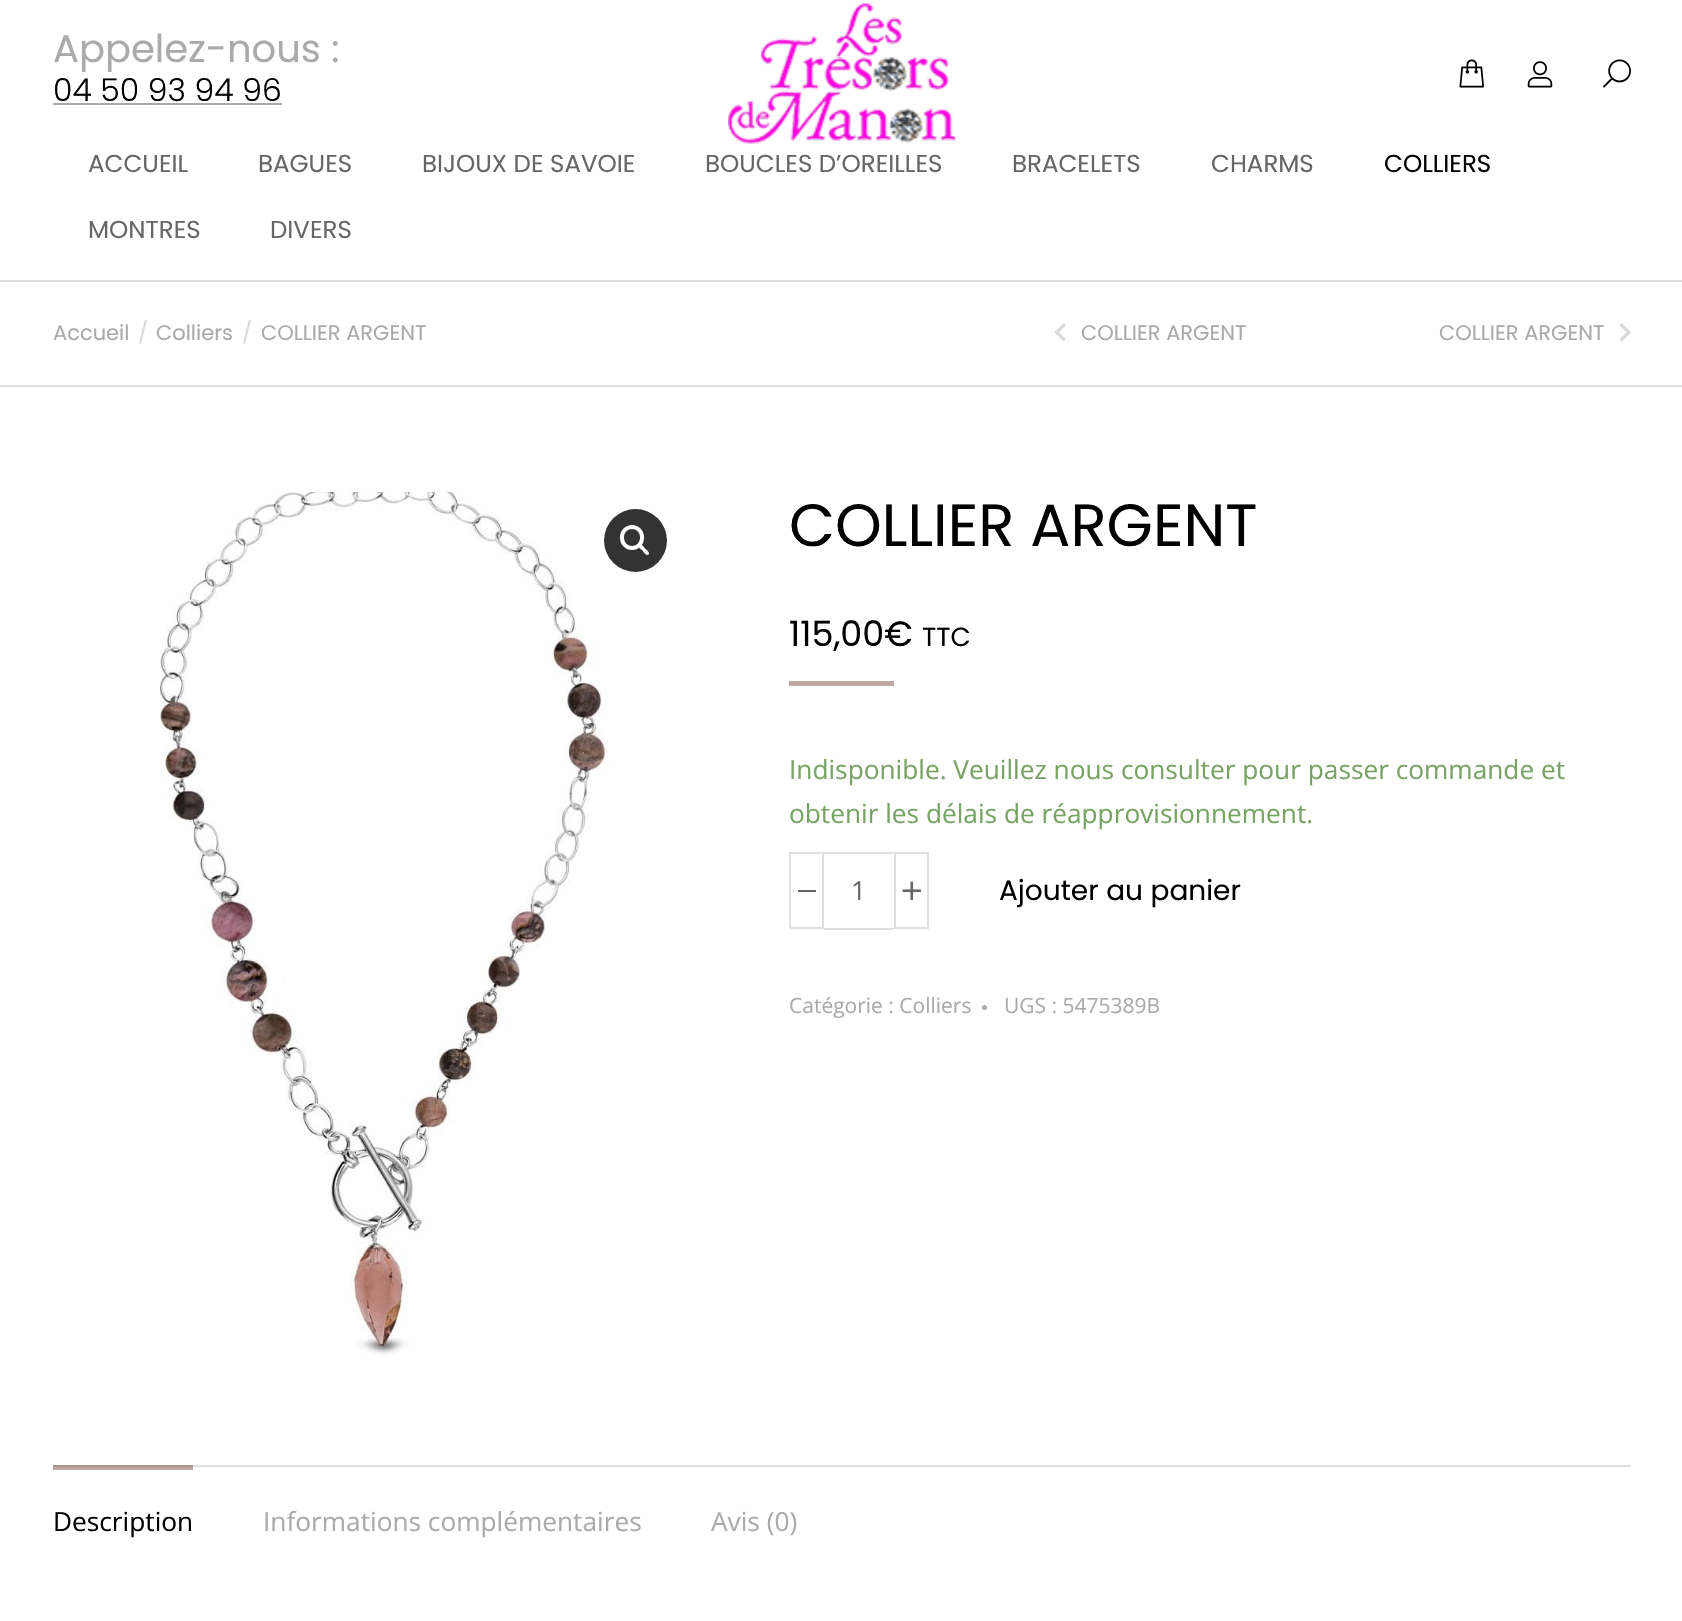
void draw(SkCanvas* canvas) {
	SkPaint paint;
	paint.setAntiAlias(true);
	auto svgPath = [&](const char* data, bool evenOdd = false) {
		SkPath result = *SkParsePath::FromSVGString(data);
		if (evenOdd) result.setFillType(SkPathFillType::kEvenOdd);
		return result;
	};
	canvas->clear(0xffffffff);
	paint.setColor(0xffe0e0e0);
	canvas->drawRect(SkRect::MakeXYWH(193, 1465, 1438, 2), paint);
	canvas->drawRect(SkRect::MakeXYWH(0, 280, 1682, 2), paint);
	SkFont f1(fontMgr->matchFamilyStyle("Poppins", SkFontStyle::Normal()), 38.5);
	f1.setSubpixel(true);
	paint.setColor(0xffaaaaaa);
	canvas->drawString("Appelez-nous :", 53, 62, f1, paint);
	SkFont f2(fontMgr->matchFamilyStyle("Poppins", SkFontStyle(300, SkFontStyle::kNormal_Width, SkFontStyle::kUpright_Slant)), 31.5);
	f2.setSubpixel(true);
	paint.setColor(0xff000000);
	canvas->drawString("04 50 93 94 96", 53, 101, f2, paint);
	paint.setColor(0xffaaaaaa);
	canvas->drawRect(SkRect::MakeXYWH(53, 103, 229, 2), paint);
	canvas->drawImageRect(SkImages::DeferredFromEncodedData(SkData::MakeFromFileName("img1.png")), SkRect::MakeXYWH(728, 3, 228, 141), SkSamplingOptions());
	canvas->drawImageRect(SkImages::DeferredFromEncodedData(SkData::MakeFromFileName("img2.png")), SkRect::MakeXYWH(1459, 59, 25, 29), SkSamplingOptions());
	canvas->drawImageRect(SkImages::DeferredFromEncodedData(SkData::MakeFromFileName("img3.png")), SkRect::MakeXYWH(1527, 61, 26, 27), SkSamplingOptions());
	canvas->drawImageRect(SkImages::DeferredFromEncodedData(SkData::MakeFromFileName("img4.png")), SkRect::MakeXYWH(1603, 59, 28, 29), SkSamplingOptions());
	SkFont f3(fontMgr->matchFamilyStyle("Poppins", SkFontStyle::Normal()), 24.5);
	f3.setSubpixel(true);
	paint.setColor(0xff666666);
	canvas->drawString("ACCUEIL", 88, 172, f3, paint);
	canvas->drawString("BAGUES", 258, 172, f3, paint);
	canvas->drawString("BIJOUX DE SAVOIE", 422, 172, f3, paint);
	canvas->drawString("BOUCLES D’OREILLES", 705, 172, f3, paint);
	canvas->drawString("BRACELETS", 1012, 172, f3, paint);
	canvas->drawString("CHARMS", 1211, 172, f3, paint);
	paint.setColor(0xff000000);
	canvas->drawString("COLLIERS", 1384, 172, f3, paint);
	paint.setColor(0xff666666);
	canvas->drawString("MONTRES", 88, 238, f3, paint);
	canvas->drawString("DIVERS", 270, 238, f3, paint);
	paint.setColor(0xffe0e0e0);
	canvas->drawRect(SkRect::MakeXYWH(0, 385, 1682, 2), paint);
	SkFont f4(fontMgr->matchFamilyStyle("Poppins", SkFontStyle::Normal()), 21);
	f4.setSubpixel(true);
	paint.setColor(0xffaaaaaa);
	canvas->drawString("Accueil", 53, 340, f4, paint);
	paint.setColor(0xffd9d9d9);
	canvas->drawString("/", 138, 340, f4, paint);
	paint.setColor(0xffaaaaaa);
	canvas->drawString("Colliers", 156, 340, f4, paint);
	paint.setColor(0xffd9d9d9);
	canvas->drawString("/", 242, 340, f4, paint);
	paint.setColor(0xffaaaaaa);
	canvas->drawString("COLLIER ARGENT", 261, 340, f4, paint);
	canvas->drawImageRect(SkImages::DeferredFromEncodedData(SkData::MakeFromFileName("img5.png")), SkRect::MakeXYWH(1054, 323, 12, 19), SkSamplingOptions());
	canvas->save();
	canvas->clipRect(SkRect::MakeXYWH(1082, 312, 164, 43));
	canvas->drawString("COLLIER ARGENT", 1081, 340, f4, paint);
	canvas->restore();
	canvas->drawString("COLLIER ARGENT", 1439, 340, f4, paint);
	canvas->drawImageRect(SkImages::DeferredFromEncodedData(SkData::MakeFromFileName("img6.png")), SkRect::MakeXYWH(1620, 323, 11, 19), SkSamplingOptions());
	canvas->drawImageRect(SkImages::DeferredFromEncodedData(SkData::MakeFromFileName("img7.png")), SkRect::MakeXYWH(160, 491, 449, 864), SkSamplingOptions());
	paint.setColor(0xff333333);
	canvas->drawCircle(635.5, 540.5, 31.5, paint);
	paint.setStroke(true);
	paint.setStrokeWidth(4);
	paint.setColor(0xffffffff);
	canvas->drawRoundRect(SkRect::MakeXYWH(622, 527, 20, 21), 10, 10, paint);
	paint.setStroke(false);
	canvas->drawPath(svgPath("M638.5 544.5C640.5 542.5 644 547 645 548.5C646 549.5 650.5 552.5 648.5 554.5C646.5 556.5 643.5 552 642.5 550.5C641.5 549.5 636.5 546.5 638.5 544.5Z"), paint);
	SkFont f5(fontMgr->matchFamilyStyle("Poppins", SkFontStyle::Normal()), 59.5);
	f5.setSubpixel(true);
	paint.setColor(0xff000000);
	canvas->drawString("COLLIER ARGENT", 789, 546, f5, paint);
	SkFont f6(fontMgr->matchFamilyStyle("Poppins", SkFontStyle::Normal()), 35);
	f6.setSubpixel(true);
	canvas->drawString("115,00€", 789, 646, f6, paint);
	SkFont f7(fontMgr->matchFamilyStyle("Poppins", SkFontStyle::Normal()), 26.25);
	f7.setSubpixel(true);
	canvas->drawString("TTC", 922, 646, f7, paint);
	paint.setColor(0xffbca9a3);
	canvas->drawRect(SkRect::MakeXYWH(789, 681, 105, 5), paint);
	SkFont f8(fontMgr->matchFamilyStyle("Open Sans", SkFontStyle::Normal()), 26.25);
	f8.setSubpixel(true);
	paint.setColor(0xff77a464);
	canvas->drawString("Indisponible. Veuillez nous consulter pour passer commande et", 789, 779, f8, paint);
	canvas->drawString("obtenir les délais de réapprovisionnement.", 789, 823, f8, paint);
	paint.setStroke(true);
	paint.setStrokeWidth(2);
	paint.setColor(0xffe0e0e0);
	canvas->drawRect(SkRect::MakeXYWH(790, 853, 33, 75), paint);
	paint.setStroke(false);
	paint.setColor(0xff666666);
	canvas->drawRect(SkRect::MakeXYWH(798, 890, 18, 2), paint);
	paint.setColor(0xffe0e0e0);
	canvas->drawRect(SkRect::MakeXYWH(824, 852, 70, 2), paint);
	canvas->drawRect(SkRect::MakeXYWH(824, 928, 70, 2), paint);
	paint.setColor(0xff666666);
	canvas->drawString("1", 851, 900, f8, paint);
	paint.setStroke(true);
	paint.setColor(0xffe0e0e0);
	canvas->drawRect(SkRect::MakeXYWH(895, 853, 33, 75), paint);
	canvas->drawImageRect(SkImages::DeferredFromEncodedData(SkData::MakeFromFileName("img8.png")), SkRect::MakeXYWH(902, 881, 19, 19), SkSamplingOptions());
	SkFont f9(fontMgr->matchFamilyStyle("Poppins", SkFontStyle::Normal()), 28);
	f9.setSubpixel(true);
	paint.setStroke(false);
	paint.setColor(0xff000000);
	canvas->drawString("Ajouter au panier", 999, 900, f9, paint);
	SkFont f10(fontMgr->matchFamilyStyle("Open Sans", SkFontStyle::Normal()), 21);
	f10.setSubpixel(true);
	paint.setColor(0xffaaaaaa);
	canvas->drawString("Catégorie : Colliers", 789, 1013, f10, paint);
	canvas->drawCircle(984.5, 1007.5, 2.5, paint);
	canvas->drawString("UGS : 5475389B", 1004, 1013, f10, paint);
	paint.setColor(0xffbca9a3);
	canvas->drawRect(SkRect::MakeXYWH(53, 1467, 140, 3), paint);
	paint.setColor(0xffa5958f);
	canvas->drawRect(SkRect::MakeXYWH(53, 1465, 140, 2), paint);
	paint.setColor(0xff000000);
	canvas->drawString("Description", 53, 1531, f8, paint);
	paint.setColor(0xffaaaaaa);
	canvas->drawString("Informations complémentaires", 263, 1531, f8, paint);
	canvas->drawString("Avis (0)", 711, 1531, f8, paint);
}
